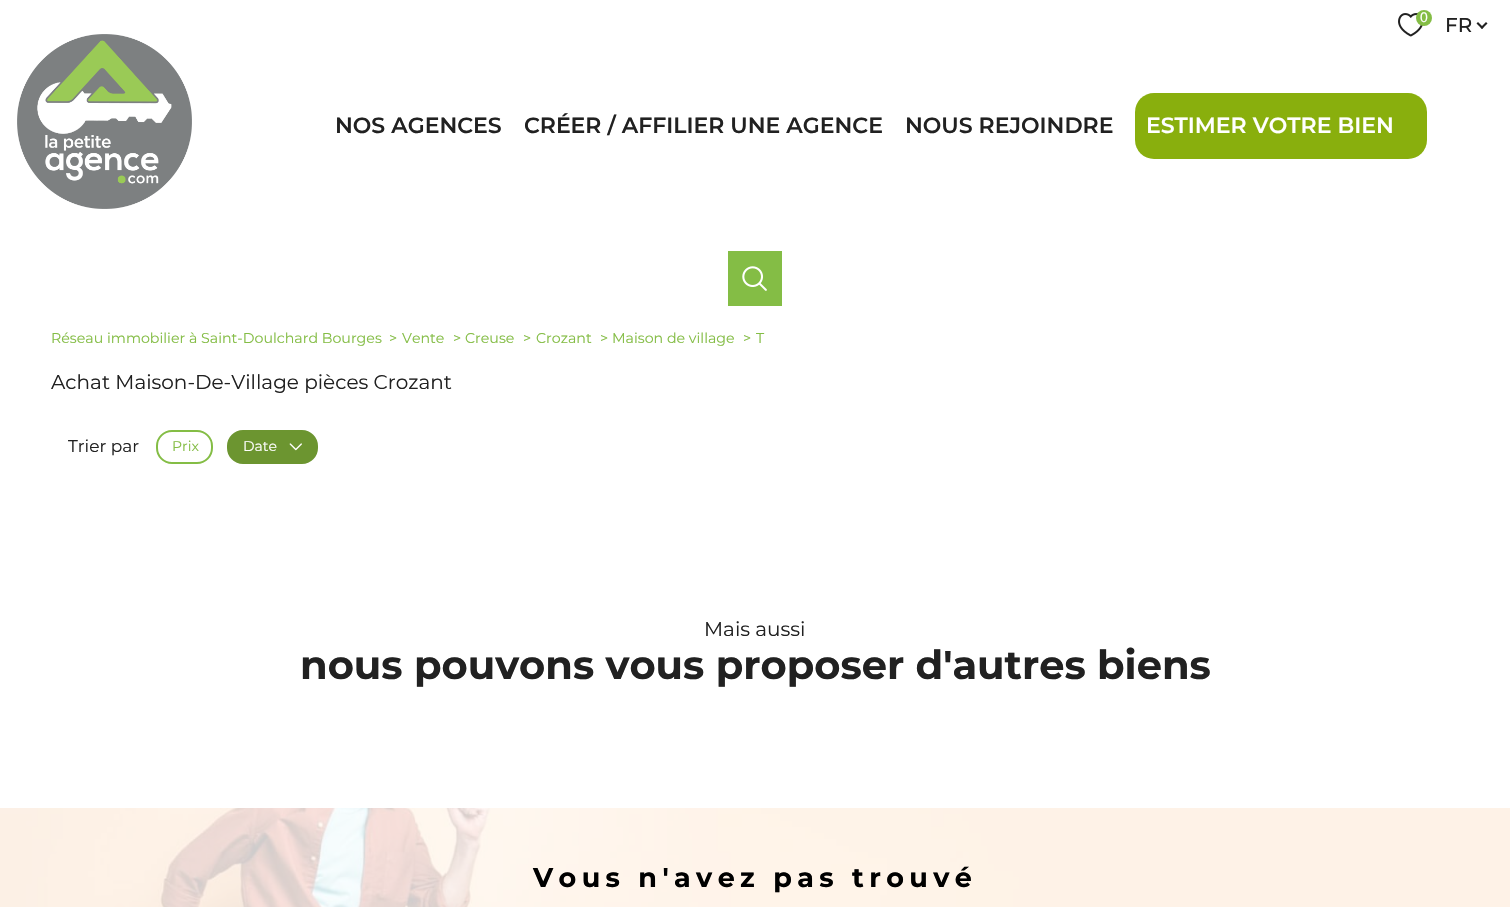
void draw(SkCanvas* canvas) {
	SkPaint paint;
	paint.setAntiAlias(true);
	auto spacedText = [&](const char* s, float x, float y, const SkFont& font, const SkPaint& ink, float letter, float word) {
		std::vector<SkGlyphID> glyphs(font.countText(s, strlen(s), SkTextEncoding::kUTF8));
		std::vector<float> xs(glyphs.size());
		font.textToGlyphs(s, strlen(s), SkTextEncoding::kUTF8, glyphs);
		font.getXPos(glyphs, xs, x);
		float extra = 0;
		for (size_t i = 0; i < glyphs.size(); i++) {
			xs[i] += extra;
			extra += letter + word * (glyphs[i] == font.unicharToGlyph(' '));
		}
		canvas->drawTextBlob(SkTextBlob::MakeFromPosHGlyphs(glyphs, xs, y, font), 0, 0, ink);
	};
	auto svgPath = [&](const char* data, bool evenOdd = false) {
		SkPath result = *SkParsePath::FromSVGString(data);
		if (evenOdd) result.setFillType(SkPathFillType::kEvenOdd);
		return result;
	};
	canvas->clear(0xffffffff);
	canvas->drawImageRect(SkImages::DeferredFromEncodedData(SkData::MakeFromFileName("img1.png")), SkRect::MakeXYWH(1398, 13, 25, 24), SkSamplingOptions());
	paint.setColor(0xff84bd45);
	canvas->drawCircle(1424, 18, 8, paint);
	SkFont f1(fontMgr->matchFamilyStyle("Liberation Sans", SkFontStyle::Normal()), 14);
	f1.setSubpixel(true);
	paint.setColor(0xffffffff);
	canvas->drawString("0", 1420, 22, f1, paint);
	SkFont f2(fontMgr->matchFamilyStyle("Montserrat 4", SkFontStyle(100, SkFontStyle::kNormal_Width, SkFontStyle::kUpright_Slant)), 20);
	f2.setSubpixel(true);
	paint.setColor(0xff212121);
	canvas->drawString("FR", 1445, 32, f2, paint);
	canvas->drawPath(svgPath("M1486 22L1487.5 23.5L1482 29L1480.5 27.5Z"), paint);
	canvas->drawPath(svgPath("M1478 22L1483.5 27.5L1482 29L1476.5 23.5Z"), paint);
	canvas->drawImageRect(SkImages::DeferredFromEncodedData(SkData::MakeFromFileName("img2.png")), SkRect::MakeXYWH(17, 34, 175, 175), SkSamplingOptions());
	SkFont f3(fontMgr->matchFamilyStyle("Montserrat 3", SkFontStyle(100, SkFontStyle::kNormal_Width, SkFontStyle::kUpright_Slant)), 22);
	f3.setSubpixel(true);
	canvas->drawString("NOS AGENCES", 335, 133, f3, paint);
	canvas->drawString("CRÉER / AFFILIER UNE AGENCE", 524, 133, f3, paint);
	canvas->drawString("NOUS REJOINDRE", 905, 133, f3, paint);
	paint.setColor(0xff89af0d);
	canvas->drawRoundRect(SkRect::MakeXYWH(1135, 93, 292, 66), 19, 19, paint);
	paint.setColor(0xffffffff);
	canvas->drawString("ESTIMER VOTRE BIEN", 1146, 133, f3, paint);
	paint.setColor(0xff84bd45);
	canvas->drawRect(SkRect::MakeXYWH(728, 251, 54, 55), paint);
	canvas->drawImageRect(SkImages::DeferredFromEncodedData(SkData::MakeFromFileName("img3.png")), SkRect::MakeXYWH(742, 266, 25, 25), SkSamplingOptions());
	SkFont f4(fontMgr->matchFamilyStyle("Montserrat", SkFontStyle(100, SkFontStyle::kNormal_Width, SkFontStyle::kUpright_Slant)), 14.2);
	f4.setSubpixel(true);
	canvas->drawString("Réseau immobilier à Saint-Doulchard Bourges", 51, 343, f4, paint);
	canvas->drawString(">", 389, 343, f4, paint);
	canvas->drawString("Vente", 402, 343, f4, paint);
	canvas->drawString(">", 453, 343, f4, paint);
	canvas->drawString("Creuse", 465, 343, f4, paint);
	canvas->drawString(">", 523, 343, f4, paint);
	canvas->drawString("Crozant", 536, 343, f4, paint);
	canvas->drawString(">", 600, 343, f4, paint);
	canvas->drawString("Maison de village", 612, 343, f4, paint);
	canvas->drawString(">", 743, 343, f4, paint);
	canvas->drawString("T", 756, 343, f4, paint);
	SkFont f5(fontMgr->matchFamilyStyle("Montserrat", SkFontStyle(100, SkFontStyle::kNormal_Width, SkFontStyle::kUpright_Slant)), 20);
	f5.setSubpixel(true);
	paint.setColor(0xff212121);
	canvas->drawString("Achat Maison-De-Village pièces Crozant", 51, 389, f5, paint);
	SkFont f6(fontMgr->matchFamilyStyle("Montserrat", SkFontStyle(100, SkFontStyle::kNormal_Width, SkFontStyle::kUpright_Slant)), 17);
	f6.setSubpixel(true);
	canvas->drawString("Trier par", 68, 452, f6, paint);
	paint.setStroke(true);
	paint.setStrokeWidth(2);
	paint.setColor(0xff84bd45);
	canvas->drawRoundRect(SkRect::MakeXYWH(157, 431, 55, 32), 15, 15, paint);
	SkFont f7(fontMgr->matchFamilyStyle("Montserrat", SkFontStyle(100, SkFontStyle::kNormal_Width, SkFontStyle::kUpright_Slant)), 14);
	f7.setSubpixel(true);
	paint.setStroke(false);
	canvas->drawString("Prix", 172, 451, f7, paint);
	paint.setColor(0xff6c9530);
	canvas->drawRoundRect(SkRect::MakeXYWH(228, 431, 89, 32), 15, 15, paint);
	paint.setStroke(true);
	canvas->drawRoundRect(SkRect::MakeXYWH(228, 431, 89, 32), 15, 15, paint);
	paint.setStroke(false);
	paint.setColor(0xffffffff);
	canvas->drawString("Date", 243, 451, f7, paint);
	canvas->drawImageRect(SkImages::DeferredFromEncodedData(SkData::MakeFromFileName("img4.png")), SkRect::MakeXYWH(289, 443, 13, 8), SkSamplingOptions());
	paint.setColor(0xff212121);
	canvas->drawString("Mais aussi", 704, 636, f5, paint);
	SkFont f8(fontMgr->matchFamilyStyle("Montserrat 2", SkFontStyle(100, SkFontStyle::kNormal_Width, SkFontStyle::kUpright_Slant)), 40);
	f8.setSubpixel(true);
	canvas->drawString("nous pouvons vous proposer d'autres biens", 300, 679, f8, paint);
	canvas->drawImageRect(SkImages::DeferredFromEncodedData(SkData::MakeFromFileName("img5.png")), SkRect::MakeXYWH(0, 808, 1510, 99), SkSamplingOptions());
	SkFont f9(fontMgr->matchFamilyStyle("Montserrat 2", SkFontStyle(100, SkFontStyle::kNormal_Width, SkFontStyle::kUpright_Slant)), 27);
	f9.setSubpixel(true);
	paint.setColor(0xff000000);
	spacedText("Vous n'avez pas trouvé", 533, 887, f9, paint, 5.4, 0);
}
